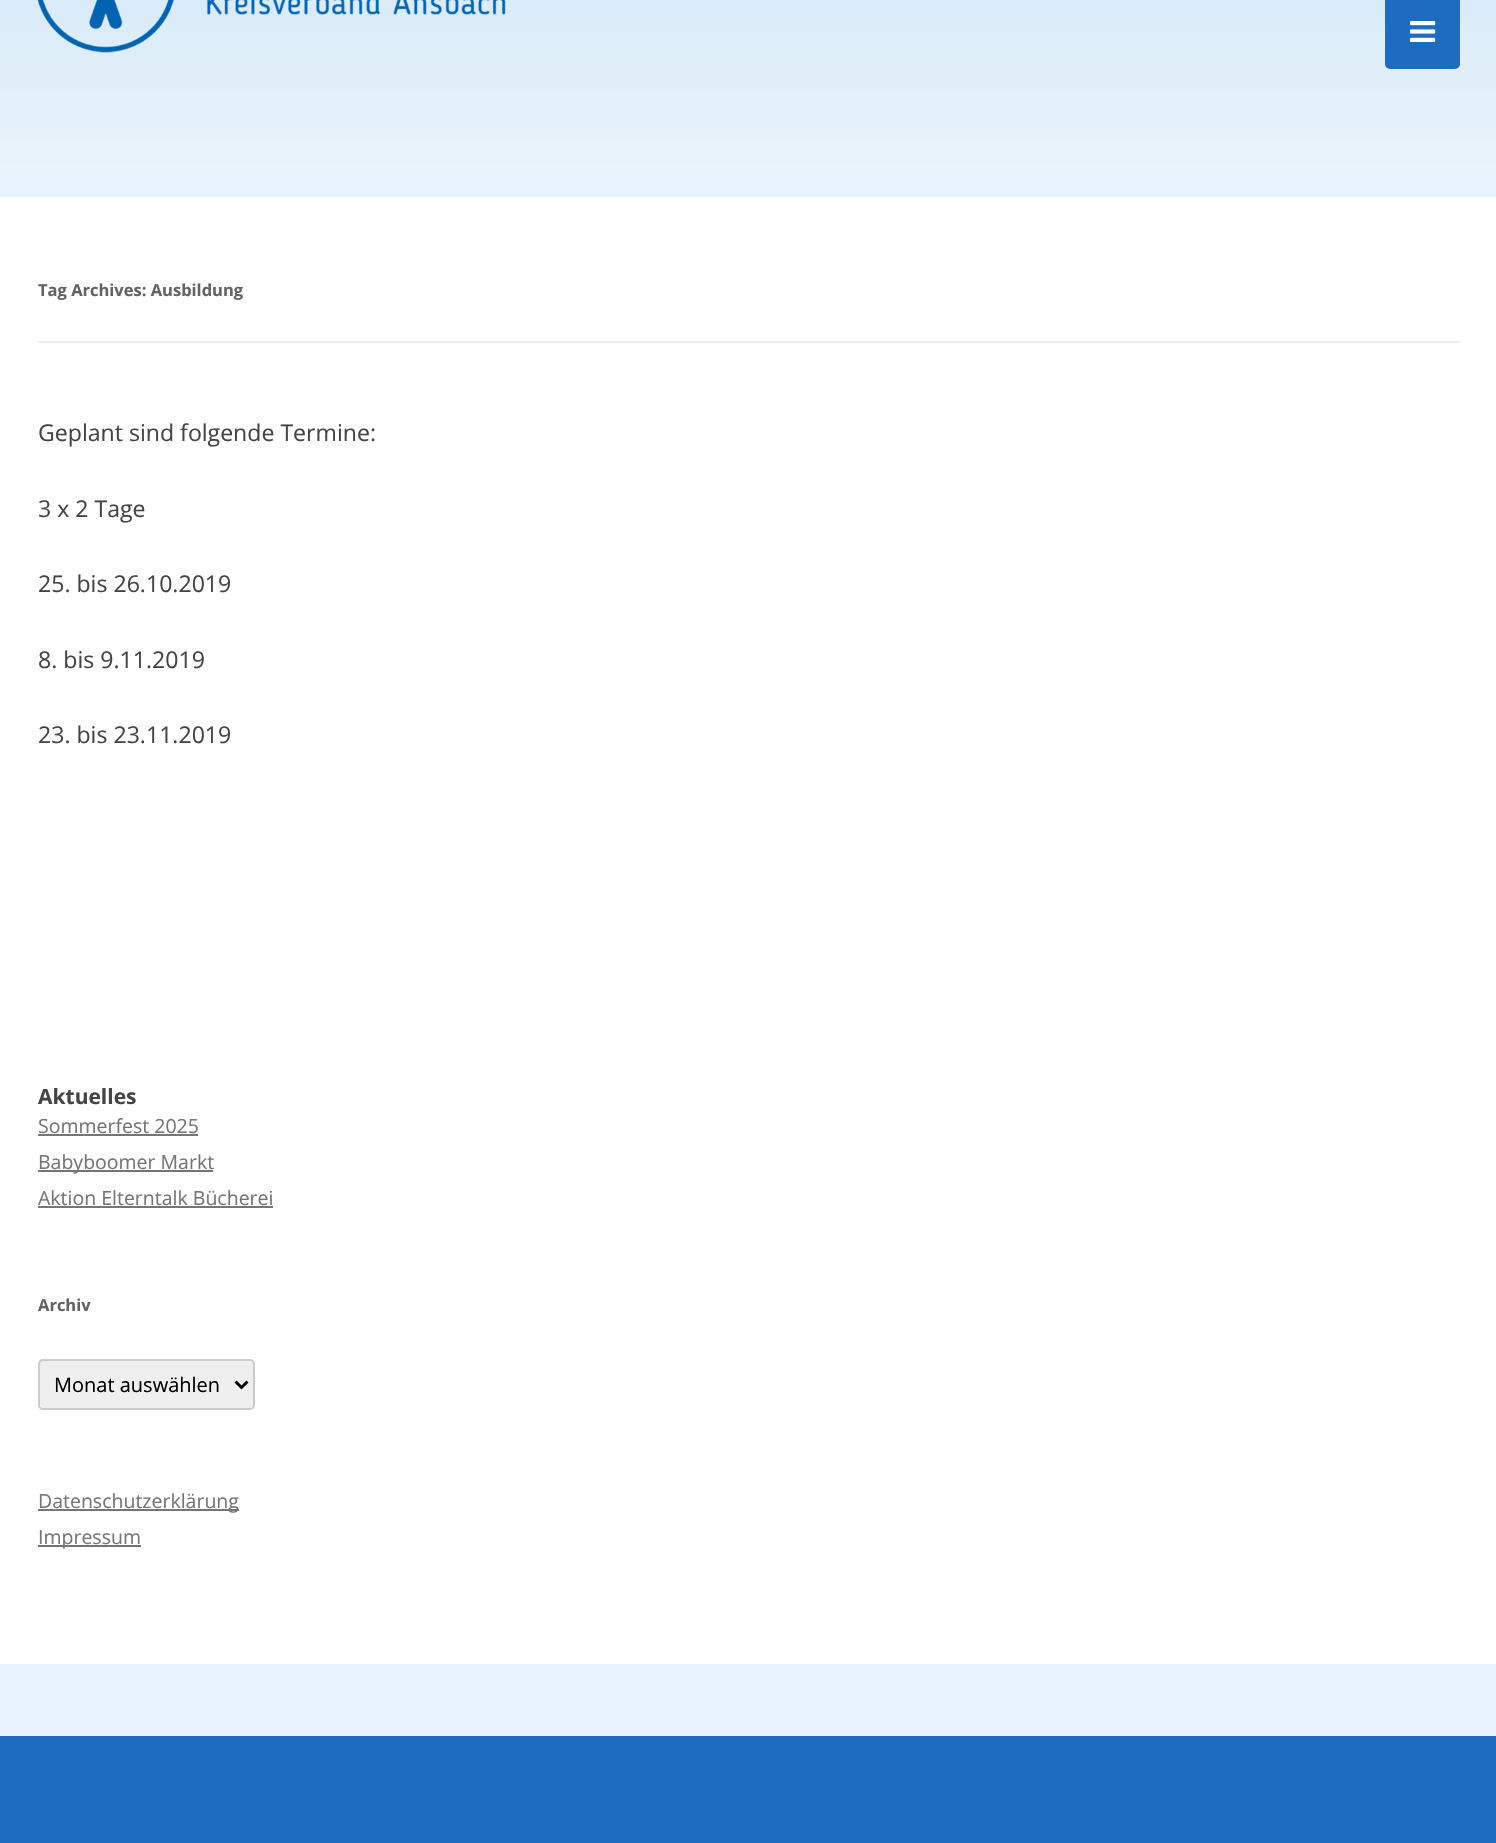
void draw(SkCanvas* canvas) {
	SkPaint paint;
	paint.setAntiAlias(true);
	auto svgPath = [&](const char* data, bool evenOdd = false) {
		SkPath result = *SkParsePath::FromSVGString(data);
		if (evenOdd) result.setFillType(SkPathFillType::kEvenOdd);
		return result;
	};
	canvas->clear(0xffe8f3ff);
	{
		const SkColor colors[] = {0xffbbdef7, 0xffeaf3fa};
		const float stops[] = {0, 1};
		const SkPoint ends[] = {{749, -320}, {749, 176}};
		paint.setShader(SkGradientShader::MakeLinear(ends, colors, stops, 2, SkTileMode::kClamp));
		paint.setAlpha(255);
	}
	canvas->drawRect(SkRect::MakeXYWH(0, 0, 1496, 176), paint);
	canvas->drawImageRect(SkImages::DeferredFromEncodedData(SkData::MakeFromFileName("img1.png")), SkRect::MakeXYWH(37, 0, 469, 53), SkSamplingOptions());
	paint.setShader(nullptr);
	paint.setColor(0xffffffff);
	canvas->drawRect(SkRect::MakeXYWH(0, 197, 1496, 1467), paint);
	paint.setColor(0xff1d6cbf);
	canvas->drawRoundRect(SkRect::MakeXYWH(1385, -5, 75, 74), 5, 5, paint);
	canvas->drawImageRect(SkImages::DeferredFromEncodedData(SkData::MakeFromFileName("img2.png")), SkRect::MakeXYWH(1410, 21, 26, 21), SkSamplingOptions());
	paint.setColor(0xffededed);
	canvas->drawRect(SkRect::MakeXYWH(38, 341, 1422, 2), paint);
	SkFont f1(fontMgr->matchFamilyStyle("Open Sans", SkFontStyle::Bold()), 16.5);
	f1.setSubpixel(true);
	paint.setColor(0xff636363);
	canvas->drawString("Tag Archives: Ausbildung", 38, 296, f1, paint);
	SkFont f2(fontMgr->matchFamilyStyle("Open Sans", SkFontStyle::Normal()), 23.1);
	f2.setSubpixel(true);
	paint.setColor(0xff444444);
	canvas->drawString("Geplant sind folgende Termine:", 38, 441, f2, paint);
	canvas->drawString("3 x 2 Tage", 38, 517, f2, paint);
	canvas->drawString("25. bis 26.10.2019", 38, 592, f2, paint);
	canvas->drawString("8. bis 9.11.2019", 38, 668, f2, paint);
	canvas->drawString("23. bis 23.11.2019", 38, 743, f2, paint);
	SkFont f3(fontMgr->matchFamilyStyle("Open Sans", SkFontStyle::Bold()), 21);
	f3.setSubpixel(true);
	canvas->drawString("Aktuelles", 38, 1104, f3, paint);
	SkFont f4(fontMgr->matchFamilyStyle("Open Sans", SkFontStyle::Normal()), 19.5);
	f4.setSubpixel(true);
	paint.setColor(0xff757575);
	canvas->drawString("Sommerfest 2025", 38, 1133, f4, paint);
	canvas->drawRect(SkRect::MakeXYWH(38, 1134, 160, 2), paint);
	canvas->drawRect(SkRect::MakeXYWH(38, 1170, 175, 2), paint);
	canvas->drawString("Babyboomer Markt", 38, 1169, f4, paint);
	canvas->drawString("Aktion Elterntalk Bücherei", 38, 1205, f4, paint);
	canvas->drawRect(SkRect::MakeXYWH(38, 1206, 235, 2), paint);
	paint.setColor(0xff636363);
	canvas->drawString("Archiv", 38, 1311, f1, paint);
	paint.setColor(0xffefefef);
	canvas->drawRoundRect(SkRect::MakeXYWH(39, 1360, 215, 49), 4, 4, paint);
	paint.setStroke(true);
	paint.setStrokeWidth(2);
	paint.setColor(0xffcccccc);
	canvas->drawRoundRect(SkRect::MakeXYWH(39, 1360, 215, 49), 4, 4, paint);
	paint.setStrokeWidth(3);
	paint.setColor(0xff000000);
	canvas->drawPath(svgPath("M235.5 1381.5L241.5 1387.5L247.5 1381.5"), paint);
	SkFont f5(fontMgr->matchFamilyStyle("Open Sans", SkFontStyle::Normal()), 20);
	f5.setSubpixel(true);
	paint.setStroke(false);
	canvas->drawString("Monat auswählen", 54, 1392, f5, paint);
	paint.setColor(0xff757575);
	canvas->drawRect(SkRect::MakeXYWH(38, 1509, 201, 2), paint);
	canvas->drawString("Datenschutzerklärung", 38, 1508, f4, paint);
	canvas->drawRect(SkRect::MakeXYWH(38, 1545, 103, 2), paint);
	canvas->drawString("Impressum", 38, 1544, f4, paint);
	paint.setColor(0xff1e6cc0);
	canvas->drawRect(SkRect::MakeXYWH(0, 1736, 1496, 107), paint);
}
